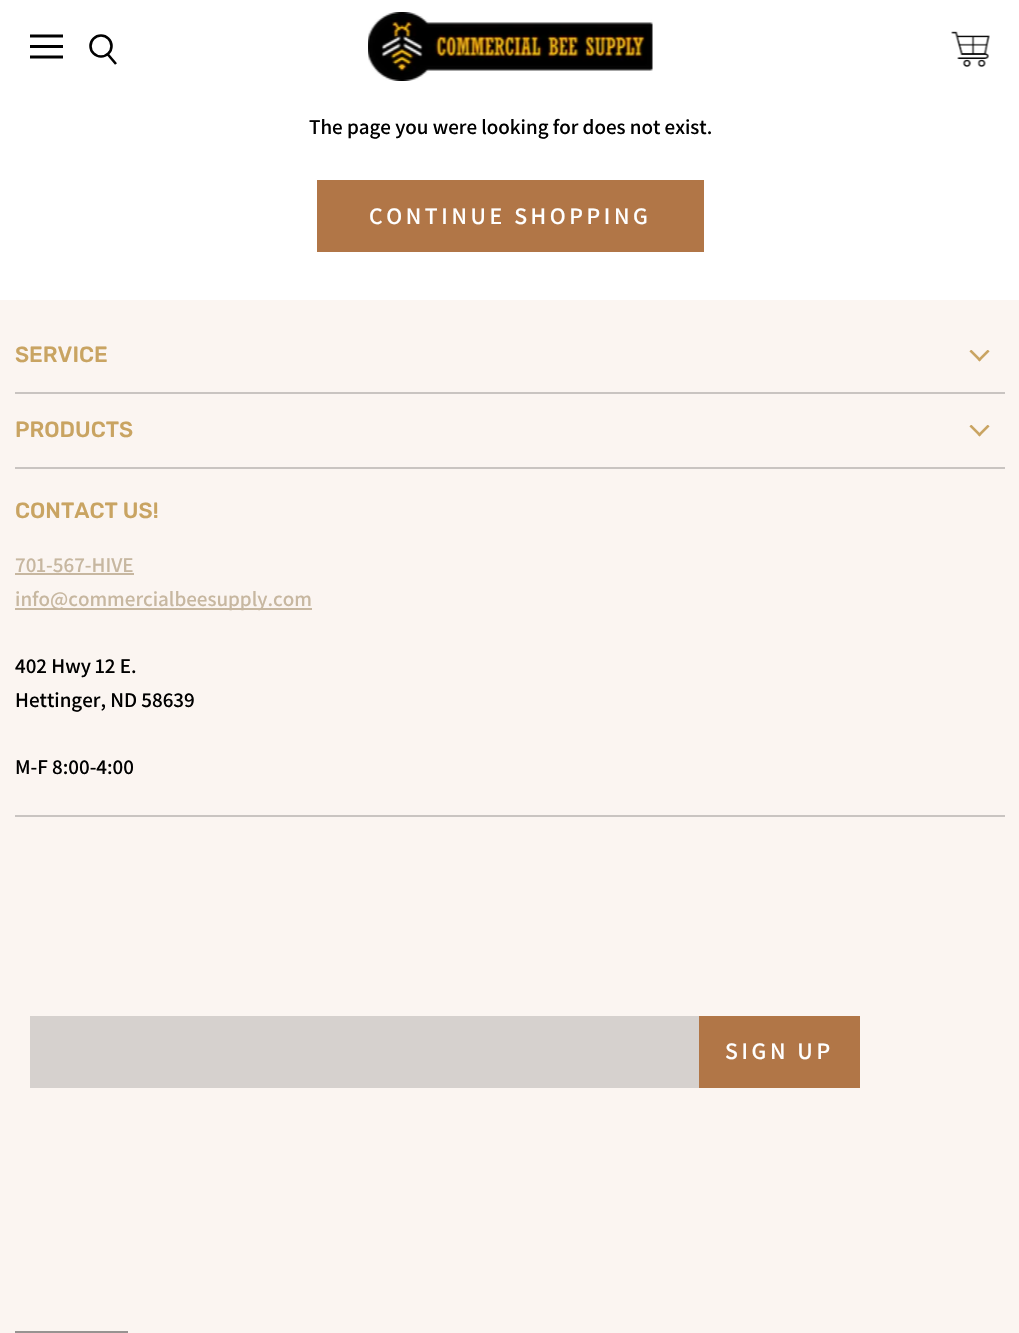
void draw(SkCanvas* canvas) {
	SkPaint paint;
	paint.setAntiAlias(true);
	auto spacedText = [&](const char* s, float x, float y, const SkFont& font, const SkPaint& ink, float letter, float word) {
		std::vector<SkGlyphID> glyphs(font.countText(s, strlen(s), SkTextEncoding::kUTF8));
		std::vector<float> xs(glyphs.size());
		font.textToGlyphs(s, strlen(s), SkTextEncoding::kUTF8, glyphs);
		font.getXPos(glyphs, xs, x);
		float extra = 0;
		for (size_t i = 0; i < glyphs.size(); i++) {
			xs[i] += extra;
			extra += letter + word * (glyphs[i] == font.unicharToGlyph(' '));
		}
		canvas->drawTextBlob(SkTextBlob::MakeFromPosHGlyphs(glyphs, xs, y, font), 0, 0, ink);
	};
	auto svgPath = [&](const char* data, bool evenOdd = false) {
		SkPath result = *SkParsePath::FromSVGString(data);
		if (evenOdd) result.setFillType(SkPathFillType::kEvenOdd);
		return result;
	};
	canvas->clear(0xffffffff);
	paint.setStroke(true);
	paint.setStrokeWidth(3);
	paint.setStrokeCap(SkPaint::kSquare_Cap);
	paint.setStrokeJoin(SkPaint::kRound_Join);
	paint.setColor(0xff000000);
	canvas->drawPath(svgPath("M61.5 36H31.5"), paint);
	paint.setStroke(false);
	canvas->drawRect(SkRect::MakeXYWH(30, 45, 33, 3), paint);
	paint.setStroke(true);
	canvas->drawPath(svgPath("M61.5 57H31.5"), paint);
	paint.setStrokeWidth(2.6);
	paint.setStrokeCap(SkPaint::kButt_Cap);
	paint.setStrokeJoin(SkPaint::kMiter_Join);
	canvas->drawPath(svgPath("M116 64L107.5 54"), paint);
	canvas->drawCircle(101, 46, 10.5, paint);
	canvas->drawImageRect(SkImages::DeferredFromEncodedData(SkData::MakeFromFileName("img1.png")), SkRect::MakeXYWH(368, 12, 285, 69), SkSamplingOptions());
	canvas->drawImageRect(SkImages::DeferredFromEncodedData(SkData::MakeFromFileName("img2.png")), SkRect::MakeXYWH(951, 31, 39, 36), SkSamplingOptions());
	SkFont f1(fontMgr->matchFamilyStyle("Assistant", SkFontStyle(600, SkFontStyle::kNormal_Width, SkFontStyle::kUpright_Slant)), 21.1);
	f1.setSubpixel(true);
	paint.setStroke(false);
	canvas->drawString("The page you were looking for does not exist.", 309, 134, f1, paint);
	paint.setColor(0xffb17647);
	canvas->drawRect(SkRect::MakeXYWH(317, 180, 387, 72), paint);
	SkFont f2(fontMgr->matchFamilyStyle("Assistant", SkFontStyle(600, SkFontStyle::kNormal_Width, SkFontStyle::kUpright_Slant)), 23.75);
	f2.setSubpixel(true);
	paint.setColor(0xffffffff);
	spacedText("CONTINUE SHOPPING", 369, 224, f2, paint, 3.6, 0);
	paint.setColor(0xfffbf5f1);
	canvas->drawRect(SkRect::MakeXYWH(0, 300, 1019, 1033), paint);
	paint.setColor(0xffc9c4c1);
	canvas->drawRect(SkRect::MakeXYWH(15, 392, 990, 2), paint);
	SkFont f3(fontMgr->matchFamilyStyle("Rubik", SkFontStyle(500, SkFontStyle::kNormal_Width, SkFontStyle::kUpright_Slant)), 22);
	f3.setSubpixel(true);
	paint.setColor(0xffc9a462);
	canvas->drawString("SERVICE", 15, 362, f3, paint);
	canvas->drawImageRect(SkImages::DeferredFromEncodedData(SkData::MakeFromFileName("img3.png")), SkRect::MakeXYWH(969, 350, 21, 12), SkSamplingOptions());
	paint.setColor(0xffc9c4c1);
	canvas->drawRect(SkRect::MakeXYWH(15, 467, 990, 2), paint);
	paint.setColor(0xffc9a462);
	canvas->drawString("PRODUCTS", 15, 437, f3, paint);
	canvas->drawImageRect(SkImages::DeferredFromEncodedData(SkData::MakeFromFileName("img3.png")), SkRect::MakeXYWH(969, 425, 21, 12), SkSamplingOptions());
	paint.setColor(0xffc9c4c1);
	canvas->drawRect(SkRect::MakeXYWH(15, 815, 990, 2), paint);
	paint.setColor(0xffc9a462);
	canvas->drawString("CONTACT US!", 15, 518, f3, paint);
	paint.setColor(0xffc7b7a0);
	canvas->drawString("701-567-HIVE", 15, 572, f1, paint);
	canvas->drawRect(SkRect::MakeXYWH(15, 573, 119, 2), paint);
	canvas->drawRect(SkRect::MakeXYWH(15, 608, 297, 2), paint);
	canvas->drawString("info@commercialbeesupply.com", 15, 606, f1, paint);
	paint.setColor(0xff000000);
	canvas->drawString("402 Hwy 12 E.", 15, 673, f1, paint);
	canvas->drawString("Hettinger, ND 58639", 15, 707, f1, paint);
	canvas->drawString("M-F 8:00-4:00", 15, 774, f1, paint);
	paint.setColor(0xffd6d1ce);
	canvas->drawRect(SkRect::MakeXYWH(30, 1016, 669, 72), paint);
	paint.setColor(0xffb17647);
	canvas->drawRect(SkRect::MakeXYWH(699, 1016, 161, 72), paint);
	paint.setColor(0xffffffff);
	spacedText("SIGN UP", 725, 1059, f2, paint, 3.6, 0);
	paint.setStroke(true);
	paint.setStrokeWidth(2);
	paint.setColor(0xff979391);
	canvas->drawRect(SkRect::MakeXYWH(16, 1332, 111, 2), paint);
}
